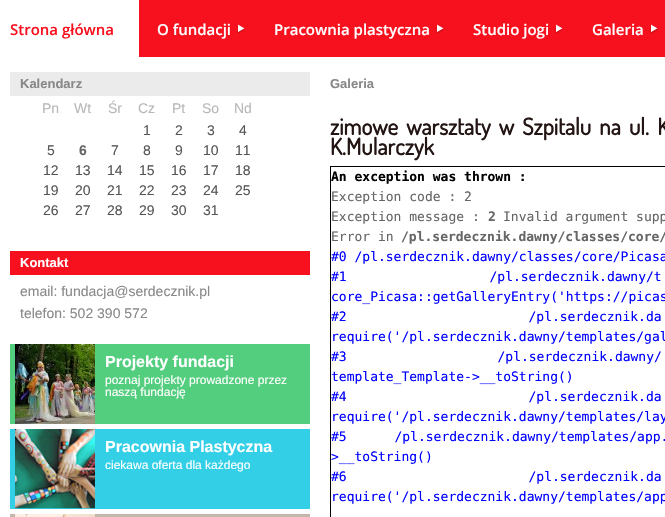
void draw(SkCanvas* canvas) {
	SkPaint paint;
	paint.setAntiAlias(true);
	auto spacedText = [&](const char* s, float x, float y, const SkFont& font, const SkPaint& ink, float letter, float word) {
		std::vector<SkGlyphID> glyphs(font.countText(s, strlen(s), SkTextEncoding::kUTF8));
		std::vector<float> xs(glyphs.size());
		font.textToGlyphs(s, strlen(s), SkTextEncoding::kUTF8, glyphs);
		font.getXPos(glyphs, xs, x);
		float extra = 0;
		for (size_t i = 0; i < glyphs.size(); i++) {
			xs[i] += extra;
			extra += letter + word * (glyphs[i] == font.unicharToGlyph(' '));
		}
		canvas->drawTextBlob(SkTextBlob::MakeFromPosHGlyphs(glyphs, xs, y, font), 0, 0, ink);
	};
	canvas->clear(0xffffffff);
	paint.setColor(0xfff7101d);
	canvas->drawRect(SkRect::MakeXYWH(139, 0, 526, 57), paint);
	SkFont f1(fontMgr->matchFamilyStyle("Open Sans", SkFontStyle(600, SkFontStyle::kNormal_Width, SkFontStyle::kUpright_Slant)), 15);
	f1.setSubpixel(true);
	canvas->drawString("Strona główna", 10, 35, f1, paint);
	paint.setColor(0xffffffff);
	canvas->drawString("O fundacji", 157, 35, f1, paint);
	canvas->drawImageRect(SkImages::DeferredFromEncodedData(SkData::MakeFromFileName("img1.png")), SkRect::MakeXYWH(237, 24, 8, 10), SkSamplingOptions());
	canvas->drawString("Pracownia plastyczna", 274, 35, f1, paint);
	canvas->drawImageRect(SkImages::DeferredFromEncodedData(SkData::MakeFromFileName("img1.png")), SkRect::MakeXYWH(436, 24, 8, 10), SkSamplingOptions());
	canvas->drawString("Studio jogi", 473, 35, f1, paint);
	canvas->drawImageRect(SkImages::DeferredFromEncodedData(SkData::MakeFromFileName("img1.png")), SkRect::MakeXYWH(555, 24, 8, 10), SkSamplingOptions());
	canvas->drawString("Galeria", 592, 35, f1, paint);
	canvas->drawImageRect(SkImages::DeferredFromEncodedData(SkData::MakeFromFileName("img1.png")), SkRect::MakeXYWH(650, 24, 8, 10), SkSamplingOptions());
	paint.setColor(0xffebebeb);
	canvas->drawRect(SkRect::MakeXYWH(10, 72, 300, 24), paint);
	SkFont f2(fontMgr->matchFamilyStyle("Liberation Sans", SkFontStyle::Bold()), 13);
	f2.setSubpixel(true);
	paint.setColor(0xff888888);
	canvas->drawString("Kalendarz", 20, 88, f2, paint);
	SkFont f3(fontMgr->matchFamilyStyle("Liberation Sans", SkFontStyle::Normal()), 14);
	f3.setSubpixel(true);
	paint.setColor(0xffb7b7b7);
	canvas->drawString("Pn", 42, 113, f3, paint);
	canvas->drawString("Wt", 74, 113, f3, paint);
	canvas->drawString("Śr", 108, 113, f3, paint);
	canvas->drawString("Cz", 138, 113, f3, paint);
	canvas->drawString("Pt", 172, 113, f3, paint);
	canvas->drawString("So", 202, 113, f3, paint);
	canvas->drawString("Nd", 234, 113, f3, paint);
	paint.setColor(0xff555555);
	canvas->drawString("1", 143, 135, f3, paint);
	canvas->drawString("2", 175, 135, f3, paint);
	canvas->drawString("3", 207, 135, f3, paint);
	canvas->drawString("4", 239, 135, f3, paint);
	canvas->drawString("5", 47, 155, f3, paint);
	SkFont f4(fontMgr->matchFamilyStyle("Liberation Sans", SkFontStyle::Bold()), 14);
	f4.setSubpixel(true);
	paint.setColor(0xff666666);
	canvas->drawString("6", 79, 155, f4, paint);
	paint.setColor(0xff555555);
	canvas->drawString("7", 111, 155, f3, paint);
	canvas->drawString("8", 143, 155, f3, paint);
	canvas->drawString("9", 175, 155, f3, paint);
	canvas->drawString("10", 203, 155, f3, paint);
	canvas->drawString("11", 235, 155, f3, paint);
	canvas->drawString("12", 43, 175, f3, paint);
	canvas->drawString("13", 75, 175, f3, paint);
	canvas->drawString("14", 107, 175, f3, paint);
	canvas->drawString("15", 139, 175, f3, paint);
	canvas->drawString("16", 171, 175, f3, paint);
	canvas->drawString("17", 203, 175, f3, paint);
	canvas->drawString("18", 235, 175, f3, paint);
	canvas->drawString("19", 43, 195, f3, paint);
	canvas->drawString("20", 75, 195, f3, paint);
	canvas->drawString("21", 107, 195, f3, paint);
	canvas->drawString("22", 139, 195, f3, paint);
	canvas->drawString("23", 171, 195, f3, paint);
	canvas->drawString("24", 203, 195, f3, paint);
	canvas->drawString("25", 235, 195, f3, paint);
	canvas->drawString("26", 43, 215, f3, paint);
	canvas->drawString("27", 75, 215, f3, paint);
	canvas->drawString("28", 107, 215, f3, paint);
	canvas->drawString("29", 139, 215, f3, paint);
	canvas->drawString("30", 171, 215, f3, paint);
	canvas->drawString("31", 203, 215, f3, paint);
	paint.setColor(0xfff7101d);
	canvas->drawRect(SkRect::MakeXYWH(10, 251, 300, 24), paint);
	paint.setColor(0xffffffff);
	canvas->drawString("Kontakt", 20, 267, f2, paint);
	paint.setColor(0xff888888);
	canvas->drawString("email: fundacja@serdecznik.pl", 20, 296, f3, paint);
	canvas->drawString("telefon: 502 390 572", 20, 318, f3, paint);
	paint.setColor(0xff53cd7e);
	canvas->drawRect(SkRect::MakeXYWH(10, 344, 300, 80), paint);
	canvas->drawImageRect(SkImages::DeferredFromEncodedData(SkData::MakeFromFileName("img2.png")), SkRect::MakeXYWH(15, 344, 80, 80), SkSamplingOptions());
	SkFont f5(fontMgr->matchFamilyStyle("Liberation Sans", SkFontStyle::Bold()), 16);
	f5.setSubpixel(true);
	paint.setColor(0xffffffff);
	canvas->drawString("Projekty fundacji", 105, 367, f5, paint);
	SkFont f6(fontMgr->matchFamilyStyle("Liberation Sans", SkFontStyle::Normal()), 12);
	f6.setSubpixel(true);
	canvas->drawString("poznaj projekty prowadzone przez", 105, 384, f6, paint);
	canvas->drawString("naszą fundację", 105, 396, f6, paint);
	paint.setColor(0xff33cfe7);
	canvas->drawRect(SkRect::MakeXYWH(10, 429, 300, 80), paint);
	canvas->drawImageRect(SkImages::DeferredFromEncodedData(SkData::MakeFromFileName("img3.png")), SkRect::MakeXYWH(15, 429, 80, 80), SkSamplingOptions());
	paint.setColor(0xffffffff);
	canvas->drawString("Pracownia Plastyczna", 105, 452, f5, paint);
	canvas->drawString("ciekawa oferta dla każdego", 105, 469, f6, paint);
	paint.setColor(0xffc2b7a8);
	canvas->drawRect(SkRect::MakeXYWH(10, 514, 300, 3), paint);
	canvas->drawImageRect(SkImages::DeferredFromEncodedData(SkData::MakeFromFileName("img4.png")), SkRect::MakeXYWH(15, 514, 80, 3), SkSamplingOptions());
	paint.setColor(0xff888888);
	canvas->drawString("Galeria", 330, 88, f2, paint);
	SkFont f7(fontMgr->matchFamilyStyle("Dosis", SkFontStyle::Bold()), 23);
	f7.setSubpixel(true);
	paint.setColor(0xff231513);
	spacedText("zimowe warsztaty w Szpitalu na ul. K", 330, 135, f7, paint, 0, 3.5);
	canvas->drawString("K.Mularczyk", 330, 155, f7, paint);
	paint.setStroke(true);
	paint.setStrokeWidth(1);
	paint.setColor(0xff000000);
	canvas->drawRect(SkRect::MakeXYWH(330.5, 166.5, 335, 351), paint);
	SkFont f8(fontMgr->matchFamilyStyle("DejaVu Sans Mono", SkFontStyle::Bold()), 13);
	f8.setSubpixel(true);
	paint.setStroke(false);
	canvas->drawString("An exception was thrown :", 331, 181, f8, paint);
	SkFont f9(fontMgr->matchFamilyStyle("DejaVu Sans Mono", SkFontStyle::Normal()), 13);
	f9.setSubpixel(true);
	paint.setColor(0xff666666);
	canvas->drawString("Exception code : 2", 331, 201, f9, paint);
	canvas->drawString("Exception message :", 331, 221, f9, paint);
	canvas->drawString("2", 488, 221, f8, paint);
	canvas->drawString("Invalid argument supp", 503, 221, f9, paint);
	canvas->drawString("Error in", 331, 241, f9, paint);
	canvas->drawString("/pl.serdecznik.dawny/classes/core/", 401, 241, f8, paint);
	paint.setColor(0xff0000ff);
	canvas->drawString("#0 /pl.serdecznik.dawny/classes/core/Picasa", 331, 261, f9, paint);
	spacedText("#1 /pl.serdecznik.dawny/t", 331, 281, f9, paint, 0, 135);
	canvas->drawString("core_Picasa::getGalleryEntry('https://picas", 331, 301, f9, paint);
	spacedText("#2 /pl.serdecznik.da", 331, 321, f9, paint, 0, 174);
	canvas->drawString("require('/pl.serdecznik.dawny/templates/gal", 331, 341, f9, paint);
	spacedText("#3 /pl.serdecznik.dawny/", 331, 361, f9, paint, 0, 143);
	canvas->drawString("template_Template->__toString()", 331, 381, f9, paint);
	spacedText("#4 /pl.serdecznik.da", 331, 401, f9, paint, 0, 174);
	canvas->drawString("require('/pl.serdecznik.dawny/templates/lay", 331, 421, f9, paint);
	spacedText("#5 /pl.serdecznik.dawny/templates/app.", 331, 441, f9, paint, 0, 40);
	canvas->drawString(">__toString()", 331, 461, f9, paint);
	spacedText("#6 /pl.serdecznik.da", 331, 481, f9, paint, 0, 174);
	canvas->drawString("require('/pl.serdecznik.dawny/templates/app", 331, 501, f9, paint);
}
